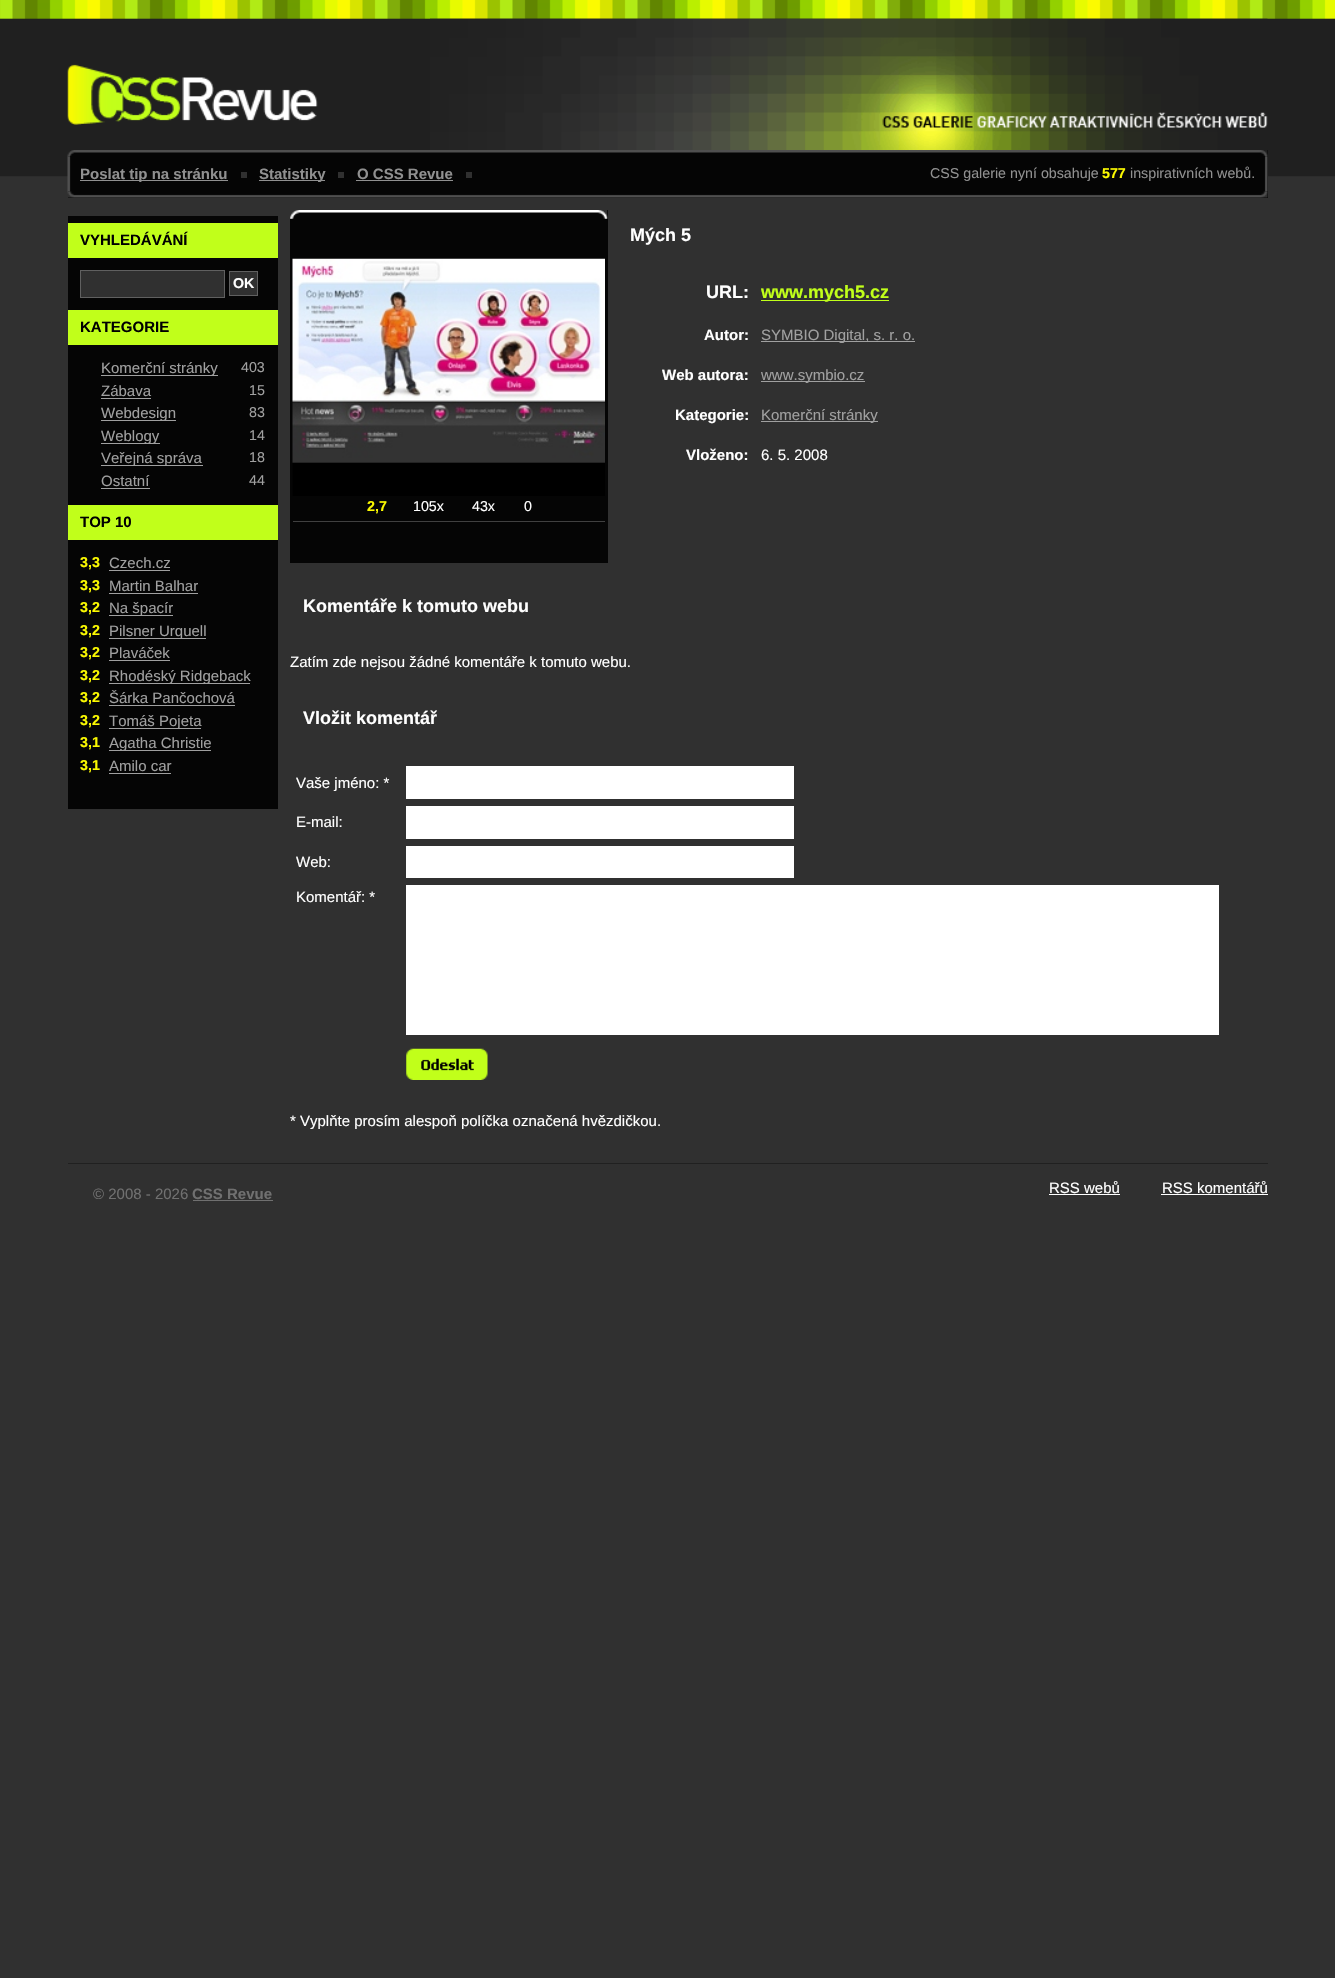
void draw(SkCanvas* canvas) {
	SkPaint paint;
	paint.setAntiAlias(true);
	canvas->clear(0xff303030);
	canvas->drawImageRect(SkImages::DeferredFromEncodedData(SkData::MakeFromFileName("img1.png")), SkRect::MakeXYWH(0, 0, 1335, 177), SkSamplingOptions());
	canvas->drawImageRect(SkImages::DeferredFromEncodedData(SkData::MakeFromFileName("img2.png")), SkRect::MakeXYWH(430, 18, 838, 132), SkSamplingOptions());
	canvas->drawImageRect(SkImages::DeferredFromEncodedData(SkData::MakeFromFileName("img3.png")), SkRect::MakeXYWH(67, 61, 251, 64), SkSamplingOptions());
	canvas->drawImageRect(SkImages::DeferredFromEncodedData(SkData::MakeFromFileName("img4.png")), SkRect::MakeXYWH(880, 112, 388, 18), SkSamplingOptions());
	paint.setColor(0xff050505);
	canvas->drawRect(SkRect::MakeXYWH(1267, 150, 1, 6), paint);
	canvas->drawImageRect(SkImages::DeferredFromEncodedData(SkData::MakeFromFileName("img5.png")), SkRect::MakeXYWH(67, 150, 1201, 7), SkSamplingOptions());
	canvas->drawRect(SkRect::MakeXYWH(68, 156, 1200, 35), paint);
	canvas->drawImageRect(SkImages::DeferredFromEncodedData(SkData::MakeFromFileName("img6.png")), SkRect::MakeXYWH(67, 156, 1201, 36), SkSamplingOptions());
	paint.setColor(0xff303030);
	canvas->drawRect(SkRect::MakeXYWH(241, 172, 6, 6), paint);
	paint.setColor(0xff909090);
	canvas->drawRect(SkRect::MakeXYWH(80, 180, 148, 1), paint);
	SkFont f1(fontMgr->matchFamilyStyle("Liberation Sans", SkFontStyle::Bold()), 15);
	f1.setSubpixel(true);
	canvas->drawString("Poslat tip na stránku", 80, 179, f1, paint);
	paint.setColor(0xff303030);
	canvas->drawRect(SkRect::MakeXYWH(338, 172, 6, 6), paint);
	paint.setColor(0xff909090);
	canvas->drawRect(SkRect::MakeXYWH(259, 180, 66, 1), paint);
	canvas->drawString("Statistiky", 259, 179, f1, paint);
	paint.setColor(0xff303030);
	canvas->drawRect(SkRect::MakeXYWH(466, 172, 6, 6), paint);
	paint.setColor(0xff909090);
	canvas->drawString("O CSS Revue", 357, 179, f1, paint);
	canvas->drawRect(SkRect::MakeXYWH(356, 180, 97, 1), paint);
	SkFont f2(fontMgr->matchFamilyStyle("Liberation Sans", SkFontStyle::Normal()), 14.25);
	f2.setSubpixel(true);
	canvas->drawString("CSS galerie nyní obsahuje", 930, 178, f2, paint);
	SkFont f3(fontMgr->matchFamilyStyle("Liberation Sans", SkFontStyle::Bold()), 14.25);
	f3.setSubpixel(true);
	paint.setColor(0xfffcfa00);
	canvas->drawString("577", 1102, 178, f3, paint);
	paint.setColor(0xff909090);
	canvas->drawString("inspirativních webů.", 1130, 178, f2, paint);
	paint.setColor(0xff050505);
	canvas->drawRect(SkRect::MakeXYWH(68, 191, 1200, 7), paint);
	canvas->drawImageRect(SkImages::DeferredFromEncodedData(SkData::MakeFromFileName("img7.png")), SkRect::MakeXYWH(67, 191, 1201, 7), SkSamplingOptions());
	canvas->drawRect(SkRect::MakeXYWH(68, 216, 210, 593), paint);
	paint.setColor(0xffc1ff1a);
	canvas->drawRect(SkRect::MakeXYWH(68, 223, 210, 35), paint);
	paint.setColor(0xff000000);
	canvas->drawString("VYHLEDÁVÁNÍ", 80, 245, f1, paint);
	paint.setColor(0xff303030);
	canvas->drawRect(SkRect::MakeXYWH(80.5, 270.5, 144, 27), paint);
	paint.setStroke(true);
	paint.setStrokeWidth(1);
	paint.setColor(0xff606060);
	canvas->drawRect(SkRect::MakeXYWH(80.5, 270.5, 144, 27), paint);
	paint.setStroke(false);
	paint.setColor(0xff303030);
	canvas->drawRect(SkRect::MakeXYWH(229.5, 271.5, 28, 24), paint);
	paint.setStroke(true);
	paint.setColor(0xff606060);
	canvas->drawRect(SkRect::MakeXYWH(229.5, 271.5, 28, 24), paint);
	paint.setStroke(false);
	paint.setColor(0xffffffff);
	canvas->drawString("OK", 233, 288, f3, paint);
	paint.setColor(0xffc1ff1a);
	canvas->drawRect(SkRect::MakeXYWH(68, 310, 210, 35), paint);
	paint.setColor(0xff000000);
	canvas->drawString("KATEGORIE", 80, 332, f1, paint);
	paint.setColor(0xffa0a0a0);
	canvas->drawRect(SkRect::MakeXYWH(101, 375, 117, 1), paint);
	SkFont f4(fontMgr->matchFamilyStyle("Liberation Sans", SkFontStyle::Normal()), 15);
	f4.setSubpixel(true);
	canvas->drawString("Komerční stránky", 101, 373, f4, paint);
	canvas->drawString("403", 241, 372, f2, paint);
	canvas->drawString("Zábava", 101, 396, f4, paint);
	canvas->drawRect(SkRect::MakeXYWH(101, 398, 50, 1), paint);
	canvas->drawString("15", 249, 395, f2, paint);
	canvas->drawRect(SkRect::MakeXYWH(101, 420, 75, 1), paint);
	canvas->drawString("Webdesign", 101, 418, f4, paint);
	canvas->drawString("83", 249, 417, f2, paint);
	canvas->drawRect(SkRect::MakeXYWH(101, 443, 59, 1), paint);
	canvas->drawString("Weblogy", 101, 441, f4, paint);
	canvas->drawString("14", 249, 440, f2, paint);
	canvas->drawRect(SkRect::MakeXYWH(101, 465, 102, 1), paint);
	canvas->drawString("Veřejná správa", 101, 463, f4, paint);
	canvas->drawString("18", 249, 462, f2, paint);
	canvas->drawString("Ostatní", 101, 486, f4, paint);
	canvas->drawRect(SkRect::MakeXYWH(101, 488, 49, 1), paint);
	canvas->drawString("44", 249, 485, f2, paint);
	paint.setColor(0xffc1ff1a);
	canvas->drawRect(SkRect::MakeXYWH(68, 505, 210, 35), paint);
	paint.setColor(0xff000000);
	canvas->drawString("TOP 10", 80, 527, f1, paint);
	paint.setColor(0xfffcfa00);
	canvas->drawString("3,3", 80, 567, f3, paint);
	paint.setColor(0xffa0a0a0);
	canvas->drawString("Czech.cz", 109, 568, f4, paint);
	canvas->drawRect(SkRect::MakeXYWH(109, 570, 61, 1), paint);
	paint.setColor(0xfffcfa00);
	canvas->drawString("3,3", 80, 590, f3, paint);
	paint.setColor(0xffa0a0a0);
	canvas->drawString("Martin Balhar", 109, 591, f4, paint);
	canvas->drawRect(SkRect::MakeXYWH(109, 593, 89, 1), paint);
	paint.setColor(0xfffcfa00);
	canvas->drawString("3,2", 80, 612, f3, paint);
	paint.setColor(0xffa0a0a0);
	canvas->drawRect(SkRect::MakeXYWH(109, 615, 64, 1), paint);
	canvas->drawString("Na špacír", 109, 613, f4, paint);
	paint.setColor(0xfffcfa00);
	canvas->drawString("3,2", 80, 635, f3, paint);
	paint.setColor(0xffa0a0a0);
	canvas->drawRect(SkRect::MakeXYWH(109, 638, 97, 1), paint);
	canvas->drawString("Pilsner Urquell", 109, 636, f4, paint);
	paint.setColor(0xfffcfa00);
	canvas->drawString("3,2", 80, 657, f3, paint);
	paint.setColor(0xffa0a0a0);
	canvas->drawString("Plaváček", 109, 658, f4, paint);
	canvas->drawRect(SkRect::MakeXYWH(109, 660, 61, 1), paint);
	paint.setColor(0xfffcfa00);
	canvas->drawString("3,2", 80, 680, f3, paint);
	paint.setColor(0xffa0a0a0);
	canvas->drawRect(SkRect::MakeXYWH(109, 683, 141, 1), paint);
	canvas->drawString("Rhodéský Ridgeback", 109, 681, f4, paint);
	paint.setColor(0xfffcfa00);
	canvas->drawString("3,2", 80, 702, f3, paint);
	paint.setColor(0xffa0a0a0);
	canvas->drawString("Šárka Pančochová", 109, 703, f4, paint);
	canvas->drawRect(SkRect::MakeXYWH(109, 705, 126, 1), paint);
	paint.setColor(0xfffcfa00);
	canvas->drawString("3,2", 80, 725, f3, paint);
	paint.setColor(0xffa0a0a0);
	canvas->drawRect(SkRect::MakeXYWH(109, 728, 92, 1), paint);
	canvas->drawString("Tomáš Pojeta", 109, 726, f4, paint);
	paint.setColor(0xfffcfa00);
	canvas->drawString("3,1", 80, 747, f3, paint);
	paint.setColor(0xffa0a0a0);
	canvas->drawRect(SkRect::MakeXYWH(109, 750, 102, 1), paint);
	canvas->drawString("Agatha Christie", 109, 748, f4, paint);
	paint.setColor(0xfffcfa00);
	canvas->drawString("3,1", 80, 770, f3, paint);
	paint.setColor(0xffa0a0a0);
	canvas->drawString("Amilo car", 109, 771, f4, paint);
	canvas->drawRect(SkRect::MakeXYWH(109, 773, 62, 1), paint);
	SkFont f5(fontMgr->matchFamilyStyle("Liberation Sans", SkFontStyle::Bold()), 18);
	f5.setSubpixel(true);
	paint.setColor(0xffffffff);
	canvas->drawString("Mých 5", 630, 241, f5, paint);
	canvas->drawString("URL:", 706, 298, f5, paint);
	paint.setColor(0xffc1ff1a);
	canvas->drawRect(SkRect::MakeXYWH(761, 300, 128, 1), paint);
	canvas->drawString("www.mych5.cz", 761, 298, f5, paint);
	paint.setColor(0xffffffff);
	canvas->drawString("Autor:", 704, 340, f1, paint);
	paint.setColor(0xffa0a0a0);
	canvas->drawRect(SkRect::MakeXYWH(761, 341, 154, 1), paint);
	canvas->drawString("SYMBIO Digital, s. r. o.", 761, 340, f4, paint);
	paint.setColor(0xffffffff);
	canvas->drawString("Web autora:", 662, 380, f1, paint);
	paint.setColor(0xffa0a0a0);
	canvas->drawRect(SkRect::MakeXYWH(761, 381, 104, 1), paint);
	canvas->drawString("www.symbio.cz", 761, 380, f4, paint);
	paint.setColor(0xffffffff);
	canvas->drawString("Kategorie:", 675, 420, f1, paint);
	paint.setColor(0xffa0a0a0);
	canvas->drawRect(SkRect::MakeXYWH(761, 421, 117, 1), paint);
	canvas->drawString("Komerční stránky", 761, 420, f4, paint);
	paint.setColor(0xffffffff);
	canvas->drawString("Vloženo:", 686, 460, f1, paint);
	canvas->drawString("6. 5. 2008", 761, 460, f4, paint);
	paint.setColor(0xff050505);
	canvas->drawRect(SkRect::MakeXYWH(290, 210, 318, 353), paint);
	canvas->drawImageRect(SkImages::DeferredFromEncodedData(SkData::MakeFromFileName("img8.png")), SkRect::MakeXYWH(290, 210, 318, 9), SkSamplingOptions());
	canvas->drawImageRect(SkImages::DeferredFromEncodedData(SkData::MakeFromFileName("img9.png")), SkRect::MakeXYWH(292, 258, 313, 238), SkSamplingOptions());
	paint.setColor(0xff404040);
	canvas->drawRect(SkRect::MakeXYWH(293, 521, 312, 1), paint);
	paint.setColor(0xfffcfa00);
	canvas->drawString("2,7", 367, 511, f3, paint);
	paint.setColor(0xffffffff);
	canvas->drawString("105x", 413, 511, f2, paint);
	canvas->drawString("43x", 472, 511, f2, paint);
	canvas->drawString("0", 524, 511, f2, paint);
	canvas->drawString("Komentáře k tomuto webu", 303, 612, f5, paint);
	canvas->drawString("Zatím zde nejsou žádné komentáře k tomuto webu.", 290, 667, f4, paint);
	canvas->drawString("Vložit komentář", 303, 724, f5, paint);
	canvas->drawString("Vaše jméno: *", 296, 788, f4, paint);
	canvas->drawRect(SkRect::MakeXYWH(406, 766, 388, 33), paint);
	canvas->drawString("E-mail:", 296, 827, f4, paint);
	canvas->drawRect(SkRect::MakeXYWH(406, 806, 388, 33), paint);
	canvas->drawString("Web:", 296, 867, f4, paint);
	canvas->drawRect(SkRect::MakeXYWH(406, 846, 388, 32), paint);
	canvas->drawString("Komentář: *", 296, 902, f4, paint);
	canvas->drawRect(SkRect::MakeXYWH(406, 885, 813, 150), paint);
	canvas->drawImageRect(SkImages::DeferredFromEncodedData(SkData::MakeFromFileName("img10.png")), SkRect::MakeXYWH(406, 1048, 82, 32), SkSamplingOptions());
	canvas->drawString("* Vyplňte prosím alespoň políčka označená hvězdičkou.", 290, 1126, f4, paint);
	paint.setColor(0xff202020);
	canvas->drawRect(SkRect::MakeXYWH(68, 1163, 1200, 1), paint);
	paint.setColor(0xff707070);
	canvas->drawString("© 2008 - 2026", 93, 1199, f4, paint);
	canvas->drawString("CSS Revue", 192, 1199, f1, paint);
	canvas->drawRect(SkRect::MakeXYWH(193, 1200, 80, 1), paint);
	paint.setColor(0xffffffff);
	canvas->drawString("RSS webů", 1049, 1193, f4, paint);
	canvas->drawRect(SkRect::MakeXYWH(1049, 1194, 71, 1), paint);
	canvas->drawString("RSS komentářů", 1162, 1193, f4, paint);
	canvas->drawRect(SkRect::MakeXYWH(1161, 1194, 107, 1), paint);
}
